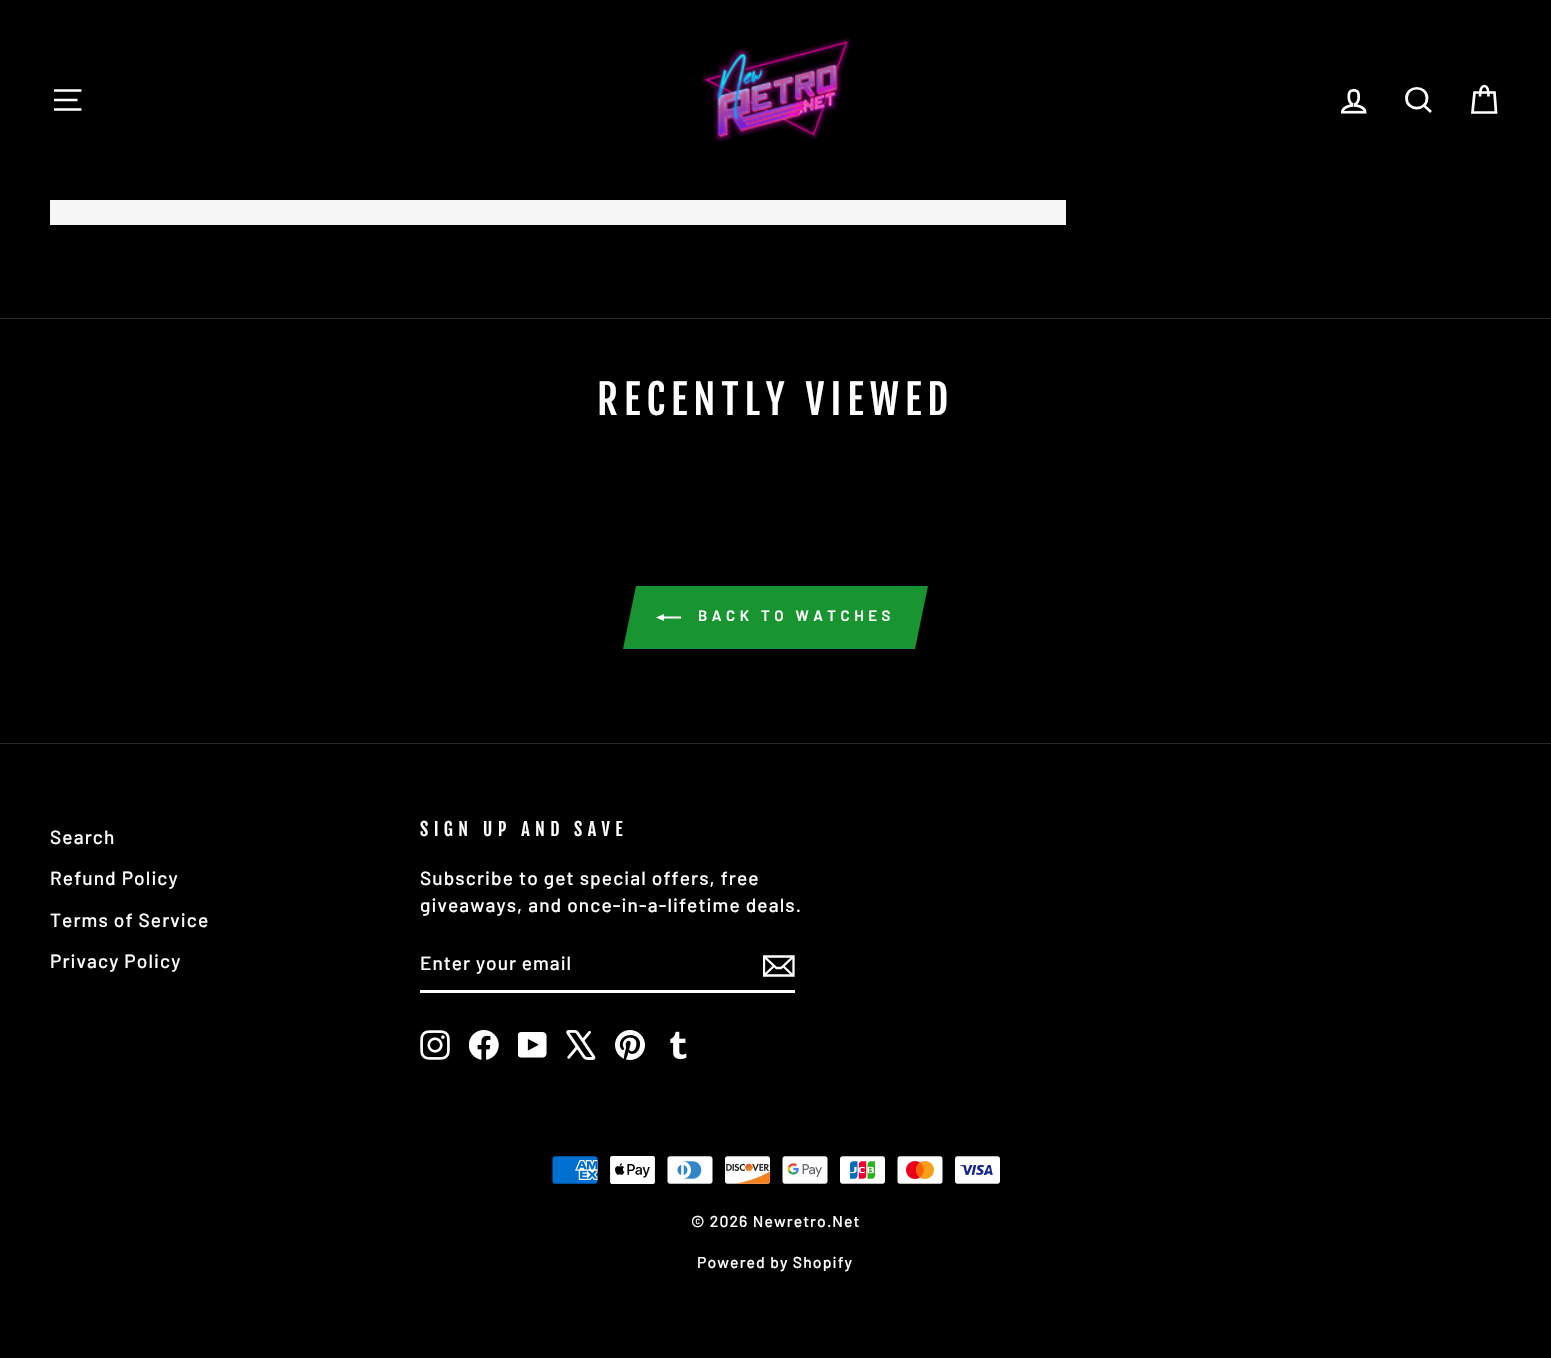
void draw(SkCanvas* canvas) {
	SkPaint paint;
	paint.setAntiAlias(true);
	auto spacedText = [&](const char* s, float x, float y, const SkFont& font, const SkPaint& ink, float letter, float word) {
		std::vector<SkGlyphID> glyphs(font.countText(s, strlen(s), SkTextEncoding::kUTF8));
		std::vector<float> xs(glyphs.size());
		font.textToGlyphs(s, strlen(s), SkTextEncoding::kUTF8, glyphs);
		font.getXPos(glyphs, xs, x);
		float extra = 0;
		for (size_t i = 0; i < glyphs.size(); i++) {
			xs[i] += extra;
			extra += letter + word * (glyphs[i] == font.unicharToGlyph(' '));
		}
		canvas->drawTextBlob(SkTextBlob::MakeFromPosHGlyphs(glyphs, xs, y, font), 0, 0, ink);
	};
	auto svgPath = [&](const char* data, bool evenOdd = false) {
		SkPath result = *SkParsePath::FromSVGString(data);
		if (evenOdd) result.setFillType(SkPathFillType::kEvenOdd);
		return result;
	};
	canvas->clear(0xff000000);
	paint.setStroke(true);
	paint.setStrokeWidth(2.7);
	paint.setColor(0xffffffff);
	canvas->drawPath(svgPath("M54 90.5H81.5M54 100H77.5M54 109.5H81.5"), paint);
	canvas->drawImageRect(SkImages::DeferredFromEncodedData(SkData::MakeFromFileName("img1.png")), SkRect::MakeXYWH(701, 37, 150, 106), SkSamplingOptions());
	canvas->drawImageRect(SkImages::DeferredFromEncodedData(SkData::MakeFromFileName("img2.png")), SkRect::MakeXYWH(1340, 89, 27, 25), SkSamplingOptions());
	canvas->drawPath(svgPath("M1427 98C1427 111.5 1406.5 111.5 1406.5 98C1406.5 85 1427 85 1427 98ZM1431 112L1424 105.5"), paint);
	canvas->drawPath(svgPath("M1480 96.5C1480 88 1482 86 1484.5 86C1486.5 86 1488.5 88 1488.5 96.5M1474.5 92.5H1494.5L1496 112.5H1472.5Z"), paint);
	paint.setStroke(false);
	paint.setColor(0xfff6f6f6);
	canvas->drawRect(SkRect::MakeXYWH(50, 200, 1016, 25), paint);
	paint.setColor(0xff2b2a27);
	canvas->drawRect(SkRect::MakeXYWH(0, 318, 1551, 1), paint);
	SkFont f1(fontMgr->matchFamilyStyle("Fjalla One", SkFontStyle::Normal()), 40.6);
	f1.setSubpixel(true);
	paint.setColor(0xffffffff);
	spacedText("RECENTLY VIEWED", 597, 415, f1, paint, 6.1, 0);
	paint.setColor(0xff189431);
	canvas->drawRect(SkRect::MakeXYWH(648, 586, 255, 63), paint);
	paint.setColor(0xffffffff);
	canvas->drawPath(svgPath("M681 616.5V618.5H664V621L656 617.5L664 614V616.5Z"), paint);
	paint.setColor(0xff189431);
	canvas->drawPath(svgPath("M636 586H661L648 649H623Z"), paint);
	SkFont f2(fontMgr->matchFamilyStyle("Barlow", SkFontStyle(600, SkFontStyle::kNormal_Width, SkFontStyle::kUpright_Slant)), 15);
	f2.setSubpixel(true);
	paint.setColor(0xffffffff);
	spacedText("BACK TO WATCHES", 698, 621, f2, paint, 4.5, 0);
	paint.setColor(0xff189431);
	canvas->drawPath(svgPath("M903 586H928L915 649H890Z"), paint);
	paint.setColor(0xff2b2a27);
	canvas->drawRect(SkRect::MakeXYWH(0, 743, 1551, 1), paint);
	SkFont f3(fontMgr->matchFamilyStyle("Barlow", SkFontStyle(500, SkFontStyle::kNormal_Width, SkFontStyle::kUpright_Slant)), 19.1);
	f3.setSubpixel(true);
	paint.setColor(0xffffffff);
	spacedText("Search", 50, 844, f3, paint, 1.1, 0);
	spacedText("Refund Policy", 50, 885, f3, paint, 1.1, 0);
	spacedText("Terms of Service", 50, 927, f3, paint, 1.1, 0);
	spacedText("Privacy Policy", 50, 968, f3, paint, 1.1, 0);
	SkFont f4(fontMgr->matchFamilyStyle("Fjalla One", SkFontStyle::Normal()), 18);
	f4.setSubpixel(true);
	spacedText("SIGN UP AND SAVE", 420, 836, f4, paint, 5.4, 0);
	spacedText("Subscribe to get special offers, free", 420, 885, f3, paint, 1.1, 0);
	spacedText("giveaways, and once-in-a-lifetime deals.", 420, 912, f3, paint, 1.1, 0);
	canvas->drawRect(SkRect::MakeXYWH(420, 990, 375, 3), paint);
	spacedText("Enter your email", 420, 970, f3, paint, 1, 0);
	canvas->save();
	canvas->clipRect(SkRect::MakeXYWH(763, 951, 32, 30));
	paint.setStroke(true);
	paint.setStrokeWidth(2.3);
	canvas->drawPath(svgPath("M793.5 975.5H764V956.5H793.5ZM764 956.5L776.5 968H781L793.5 956.5M774 966L764.5 975M793 975.5L783 966"), paint);
	canvas->restore();
	canvas->drawImageRect(SkImages::DeferredFromEncodedData(SkData::MakeFromFileName("img3.png")), SkRect::MakeXYWH(420, 1030, 30, 30), SkSamplingOptions());
	canvas->drawImageRect(SkImages::DeferredFromEncodedData(SkData::MakeFromFileName("img4.png")), SkRect::MakeXYWH(469, 1030, 30, 30), SkSamplingOptions());
	canvas->drawImageRect(SkImages::DeferredFromEncodedData(SkData::MakeFromFileName("img5.png")), SkRect::MakeXYWH(518, 1032, 29, 26), SkSamplingOptions());
	canvas->drawImageRect(SkImages::DeferredFromEncodedData(SkData::MakeFromFileName("img6.png")), SkRect::MakeXYWH(566, 1030, 30, 30), SkSamplingOptions());
	canvas->drawImageRect(SkImages::DeferredFromEncodedData(SkData::MakeFromFileName("img7.png")), SkRect::MakeXYWH(615, 1030, 30, 30), SkSamplingOptions());
	canvas->drawImageRect(SkImages::DeferredFromEncodedData(SkData::MakeFromFileName("img8.png")), SkRect::MakeXYWH(670, 1031, 17, 29), SkSamplingOptions());
	canvas->drawImageRect(SkImages::DeferredFromEncodedData(SkData::MakeFromFileName("img9.png")), SkRect::MakeXYWH(552, 1156, 46, 28), SkSamplingOptions());
	canvas->drawImageRect(SkImages::DeferredFromEncodedData(SkData::MakeFromFileName("img10.png")), SkRect::MakeXYWH(610, 1156, 45, 28), SkSamplingOptions());
	canvas->drawImageRect(SkImages::DeferredFromEncodedData(SkData::MakeFromFileName("img11.png")), SkRect::MakeXYWH(667, 1156, 46, 28), SkSamplingOptions());
	canvas->drawImageRect(SkImages::DeferredFromEncodedData(SkData::MakeFromFileName("img12.png")), SkRect::MakeXYWH(725, 1156, 46, 28), SkSamplingOptions());
	canvas->drawImageRect(SkImages::DeferredFromEncodedData(SkData::MakeFromFileName("img13.png")), SkRect::MakeXYWH(782, 1156, 46, 28), SkSamplingOptions());
	canvas->drawImageRect(SkImages::DeferredFromEncodedData(SkData::MakeFromFileName("img14.png")), SkRect::MakeXYWH(840, 1156, 45, 28), SkSamplingOptions());
	canvas->drawImageRect(SkImages::DeferredFromEncodedData(SkData::MakeFromFileName("img15.png")), SkRect::MakeXYWH(897, 1156, 46, 28), SkSamplingOptions());
	canvas->drawImageRect(SkImages::DeferredFromEncodedData(SkData::MakeFromFileName("img16.png")), SkRect::MakeXYWH(955, 1156, 45, 28), SkSamplingOptions());
	SkFont f5(fontMgr->matchFamilyStyle("Barlow", SkFontStyle(500, SkFontStyle::kNormal_Width, SkFontStyle::kUpright_Slant)), 15.75);
	f5.setSubpixel(true);
	paint.setStroke(false);
	spacedText("© 2026 Newretro.Net", 691, 1227, f5, paint, 1.1, 0);
	spacedText("Powered by Shopify", 697, 1268, f5, paint, 1.1, 0);
}
